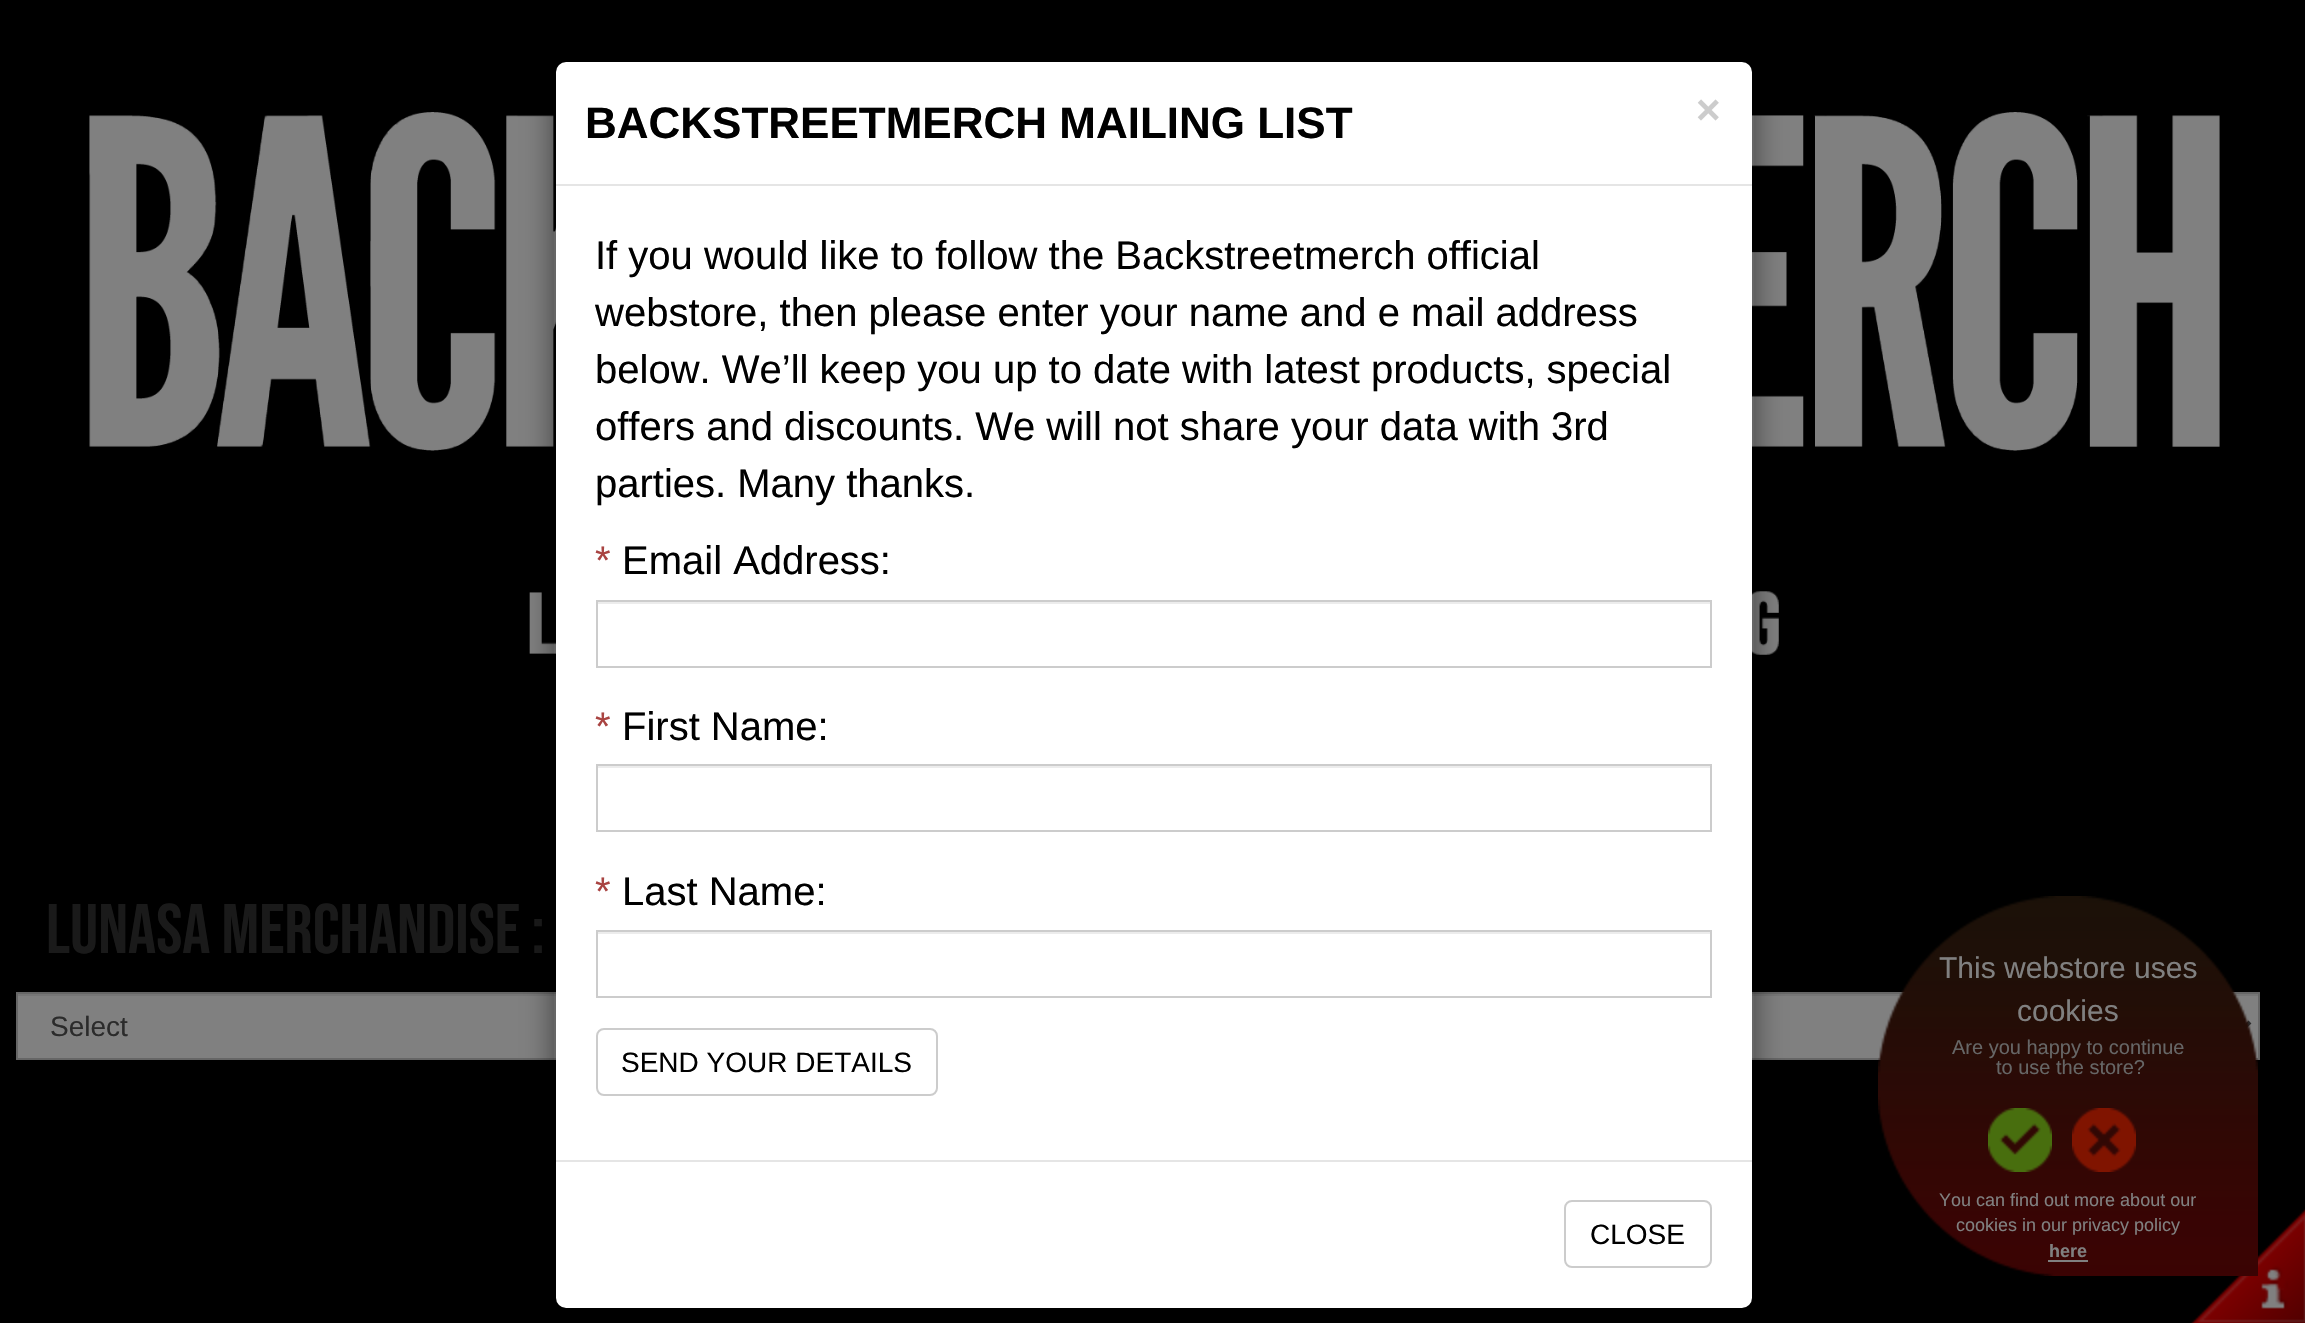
void draw(SkCanvas* canvas) {
	SkPaint paint;
	paint.setAntiAlias(true);
	auto svgPath = [&](const char* data, bool evenOdd = false) {
		SkPath result = *SkParsePath::FromSVGString(data);
		if (evenOdd) result.setFillType(SkPathFillType::kEvenOdd);
		return result;
	};
	canvas->clear(0xff000000);
	canvas->drawImageRect(SkImages::DeferredFromEncodedData(SkData::MakeFromFileName("img1.png")), SkRect::MakeXYWH(89, 112, 2131, 339), SkSamplingOptions());
	canvas->drawImageRect(SkImages::DeferredFromEncodedData(SkData::MakeFromFileName("img2.png")), SkRect::MakeXYWH(529, 591, 1250, 234), SkSamplingOptions());
	SkFont f1(fontMgr->matchFamilyStyle("Bebas Neue", SkFontStyle::Normal()), 70);
	f1.setSubpixel(true);
	paint.setColor(0xff1a1a1a);
	canvas->drawString("LUNASA MERCHANDISE :", 46, 953, f1, paint);
	paint.setColor(0xff808080);
	canvas->drawRect(SkRect::MakeXYWH(18, 996, 538, 62), paint);
	paint.setColor(0xff767676);
	canvas->drawRect(SkRect::MakeXYWH(18, 994, 538, 2), paint);
	paint.setStroke(true);
	paint.setStrokeWidth(2);
	paint.setColor(0xff666666);
	canvas->drawRect(SkRect::MakeXYWH(17, 993, 1136, 66), paint);
	SkFont f2(fontMgr->matchFamilyStyle("Liberation Sans", SkFontStyle::Normal()), 28);
	f2.setSubpixel(true);
	paint.setStroke(false);
	paint.setColor(0xff2b2b2b);
	canvas->drawString("Select", 50, 1036, f2, paint);
	paint.setColor(0xff808080);
	canvas->drawRect(SkRect::MakeXYWH(1752, 996, 506, 62), paint);
	paint.setColor(0xff767676);
	canvas->drawRect(SkRect::MakeXYWH(1752, 994, 506, 2), paint);
	paint.setStroke(true);
	paint.setColor(0xff666666);
	canvas->drawRect(SkRect::MakeXYWH(1185, 993, 1074, 66), paint);
	paint.setStrokeWidth(4);
	paint.setColor(0xff2b2b2b);
	canvas->drawPath(svgPath("M2234 1022L2242 1030L2250 1022"), paint);
	canvas->save();
	canvas->clipPath(svgPath("M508 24H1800V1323H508ZM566 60H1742C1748.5 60 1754 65.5 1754 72V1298C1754 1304.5 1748.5 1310 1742 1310H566C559.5 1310 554 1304.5 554 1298V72C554 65.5 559.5 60 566 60Z", true), true);
	paint.setStroke(false);
	paint.setColor(0x80000000);
	paint.setMaskFilter(SkMaskFilter::MakeBlur(kNormal_SkBlurStyle, 15));
	canvas->drawRoundRect(SkRect::MakeXYWH(554, 70, 1200, 1250), 12, 12, paint);
	paint.setMaskFilter(nullptr);
	canvas->restore();
	paint.setColor(0xffffffff);
	canvas->drawRoundRect(SkRect::MakeXYWH(556, 62, 1196, 1246), 10, 10, paint);
	paint.setStroke(true);
	paint.setStrokeWidth(2);
	paint.setColor(0x33000000);
	canvas->drawRoundRect(SkRect::MakeXYWH(555, 61, 1198, 1248), 11, 11, paint);
	paint.setStroke(false);
	paint.setColor(0xffe5e5e5);
	canvas->drawRect(SkRect::MakeXYWH(556, 184, 1196, 2), paint);
	SkFont f3(fontMgr->matchFamilyStyle("Liberation Sans", SkFontStyle::Bold()), 44);
	f3.setSubpixel(true);
	paint.setColor(0xff000000);
	canvas->drawString("BACKSTREETMERCH MAILING LIST", 585, 138, f3, paint);
	SkFont f4(fontMgr->matchFamilyStyle("Liberation Sans", SkFontStyle::Bold()), 42);
	f4.setSubpixel(true);
	paint.setColor(0xffcccccc);
	canvas->drawString("×", 1696, 124, f4, paint);
	SkFont f5(fontMgr->matchFamilyStyle("Liberation Sans", SkFontStyle::Normal()), 40);
	f5.setSubpixel(true);
	paint.setColor(0xff000000);
	canvas->drawString("If you would like to follow the Backstreetmerch official", 595, 269, f5, paint);
	canvas->drawString("webstore, then please enter your name and e mail address", 595, 326, f5, paint);
	canvas->drawString("below. We’ll keep you up to date with latest products, special", 595, 383, f5, paint);
	canvas->drawString("offers and discounts. We will not share your data with 3rd", 595, 440, f5, paint);
	canvas->drawString("parties. Many thanks.", 595, 497, f5, paint);
	paint.setColor(0xffa94442);
	canvas->drawString("*", 595, 574, f5, paint);
	paint.setColor(0xff000000);
	canvas->drawString("Email Address:", 622, 574, f5, paint);
	paint.setColor(0xffececec);
	canvas->drawRect(SkRect::MakeXYWH(598, 602, 1112, 2), paint);
	paint.setStroke(true);
	paint.setColor(0xffcccccc);
	canvas->drawRect(SkRect::MakeXYWH(597, 601, 1114, 66), paint);
	paint.setStroke(false);
	paint.setColor(0xffa94442);
	canvas->drawString("*", 595, 740, f5, paint);
	paint.setColor(0xff000000);
	canvas->drawString("First Name:", 622, 740, f5, paint);
	paint.setColor(0xffececec);
	canvas->drawRect(SkRect::MakeXYWH(598, 766, 1112, 2), paint);
	paint.setStroke(true);
	paint.setColor(0xffcccccc);
	canvas->drawRect(SkRect::MakeXYWH(597, 765, 1114, 66), paint);
	paint.setStroke(false);
	paint.setColor(0xffa94442);
	canvas->drawString("*", 595, 905, f5, paint);
	paint.setColor(0xff000000);
	canvas->drawString("Last Name:", 622, 905, f5, paint);
	paint.setColor(0xffececec);
	canvas->drawRect(SkRect::MakeXYWH(598, 932, 1112, 2), paint);
	paint.setStroke(true);
	paint.setColor(0xffcccccc);
	canvas->drawRect(SkRect::MakeXYWH(597, 931, 1114, 66), paint);
	canvas->drawRoundRect(SkRect::MakeXYWH(597, 1029, 340, 66), 7, 7, paint);
	paint.setStroke(false);
	paint.setColor(0xff000000);
	canvas->drawString("SEND YOUR DETAILS", 621, 1072, f2, paint);
	paint.setColor(0xffe5e5e5);
	canvas->drawRect(SkRect::MakeXYWH(556, 1160, 1196, 2), paint);
	paint.setStroke(true);
	paint.setColor(0xffcccccc);
	canvas->drawRoundRect(SkRect::MakeXYWH(1565, 1201, 146, 66), 7, 7, paint);
	paint.setStroke(false);
	paint.setColor(0xff000000);
	canvas->drawString("CLOSE", 1590, 1244, f2, paint);
	canvas->drawImageRect(SkImages::DeferredFromEncodedData(SkData::MakeFromFileName("img6.png")), SkRect::MakeXYWH(2191, 1209, 114, 114), SkSamplingOptions());
	canvas->drawImageRect(SkImages::DeferredFromEncodedData(SkData::MakeFromFileName("img3.png")), SkRect::MakeXYWH(1878, 896, 380, 380), SkSamplingOptions());
	SkFont f6(fontMgr->matchFamilyStyle("Liberation Sans", SkFontStyle::Normal()), 30);
	f6.setSubpixel(true);
	paint.setColor(0xff808080);
	canvas->drawString("This webstore uses", 1939, 978, f6, paint);
	canvas->drawString("cookies", 2017, 1021, f6, paint);
	SkFont f7(fontMgr->matchFamilyStyle("Liberation Sans", SkFontStyle::Normal()), 20);
	f7.setSubpixel(true);
	paint.setColor(0xff666666);
	canvas->drawString("Are you happy to continue", 1952, 1054, f7, paint);
	canvas->drawString("to use the store?", 1996, 1074, f7, paint);
	canvas->drawImageRect(SkImages::DeferredFromEncodedData(SkData::MakeFromFileName("img4.png")), SkRect::MakeXYWH(1988, 1108, 64, 64), SkSamplingOptions());
	canvas->drawImageRect(SkImages::DeferredFromEncodedData(SkData::MakeFromFileName("img5.png")), SkRect::MakeXYWH(2072, 1108, 64, 64), SkSamplingOptions());
	SkFont f8(fontMgr->matchFamilyStyle("Liberation Sans", SkFontStyle::Normal()), 18);
	f8.setSubpixel(true);
	paint.setColor(0xff808080);
	canvas->drawString("You can find out more about our", 1939, 1206, f8, paint);
	canvas->drawString("cookies in our privacy policy", 1956, 1231, f8, paint);
	SkFont f9(fontMgr->matchFamilyStyle("Liberation Sans", SkFontStyle::Bold()), 18);
	f9.setSubpixel(true);
	canvas->drawString("here", 2049, 1257, f9, paint);
	canvas->drawRect(SkRect::MakeXYWH(2048, 1260, 40, 2), paint);
}
